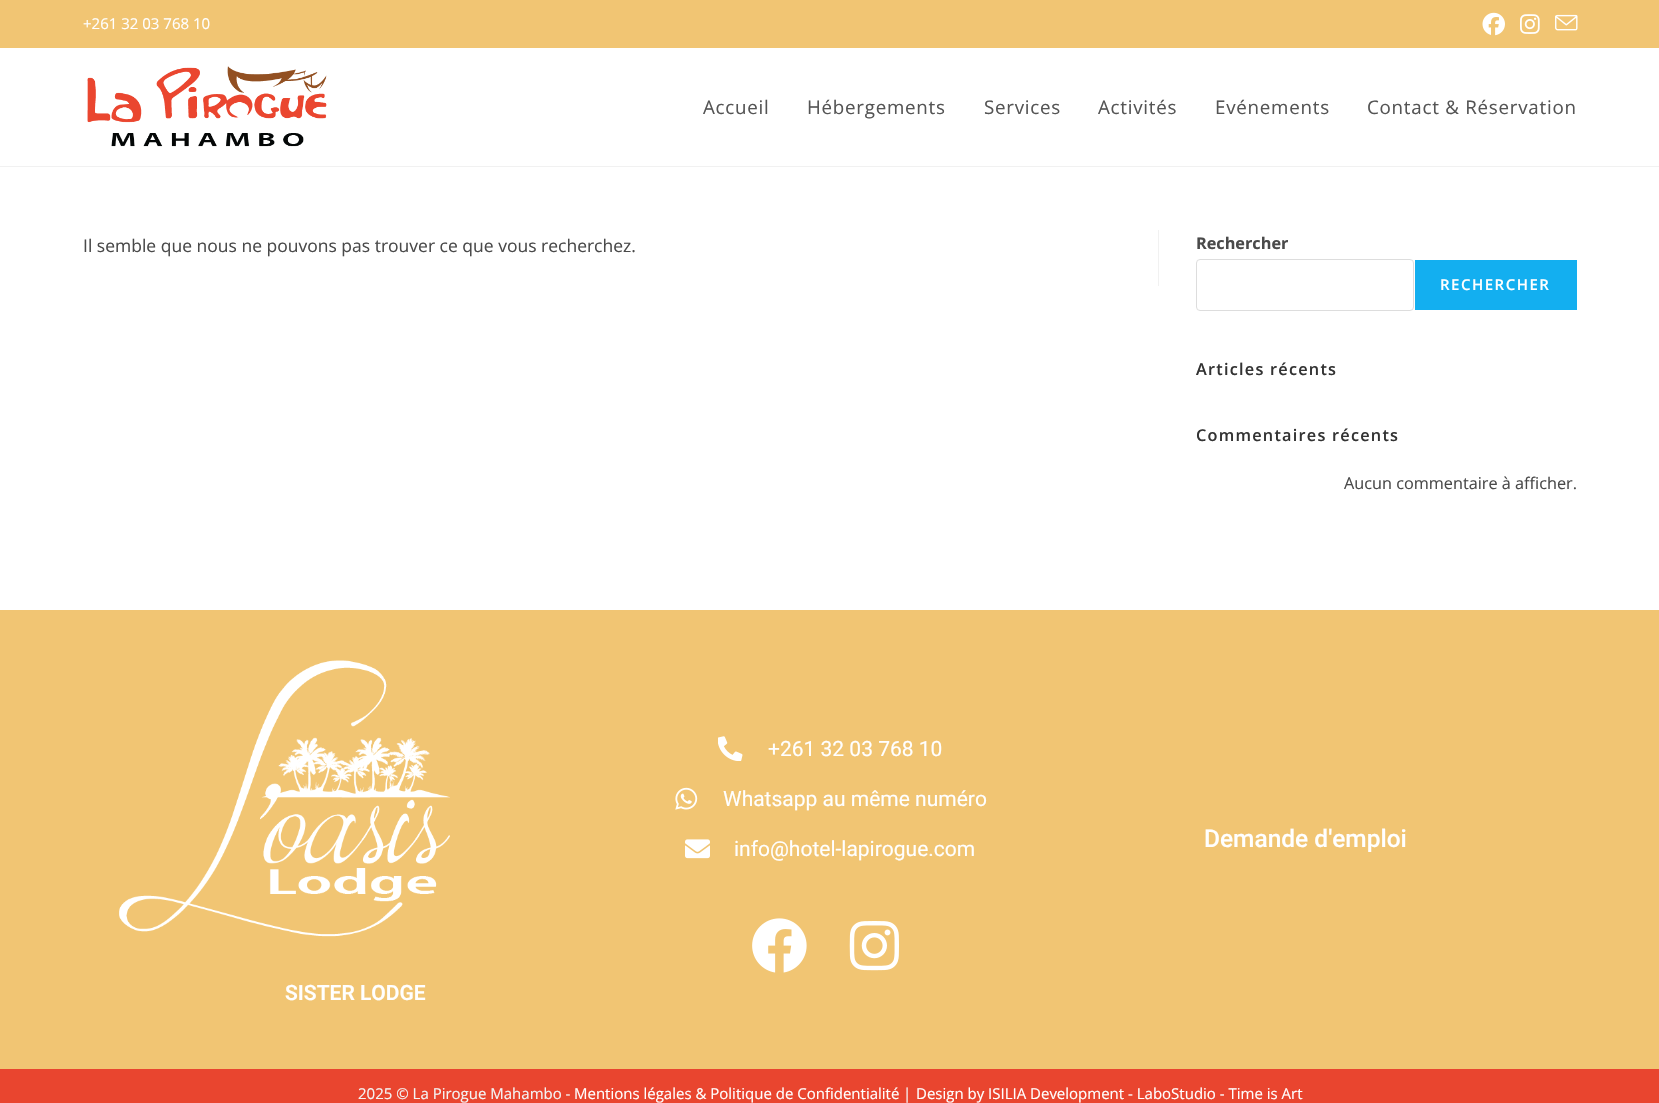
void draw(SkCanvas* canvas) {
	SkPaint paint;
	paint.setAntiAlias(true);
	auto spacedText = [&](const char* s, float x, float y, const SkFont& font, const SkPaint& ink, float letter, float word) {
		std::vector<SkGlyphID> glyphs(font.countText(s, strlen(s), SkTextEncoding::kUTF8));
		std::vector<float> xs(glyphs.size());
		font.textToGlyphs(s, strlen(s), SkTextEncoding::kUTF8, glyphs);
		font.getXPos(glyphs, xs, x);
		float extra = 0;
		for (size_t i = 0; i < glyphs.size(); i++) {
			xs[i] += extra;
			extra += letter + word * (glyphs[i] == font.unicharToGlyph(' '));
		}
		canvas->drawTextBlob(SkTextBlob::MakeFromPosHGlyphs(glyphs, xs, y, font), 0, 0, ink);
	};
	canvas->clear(0xffffffff);
	paint.setColor(0xfff1c573);
	canvas->drawRect(SkRect::MakeXYWH(0, 0, 1659, 48), paint);
	SkFont f1(fontMgr->matchFamilyStyle("Open Sans", SkFontStyle::Normal()), 15);
	f1.setSubpixel(true);
	paint.setColor(0xffffffff);
	canvas->drawString("+261 32 03 768 10", 83, 29, f1, paint);
	canvas->drawImageRect(SkImages::DeferredFromEncodedData(SkData::MakeFromFileName("img1.png")), SkRect::MakeXYWH(1482, 12, 23, 24), SkSamplingOptions());
	canvas->drawImageRect(SkImages::DeferredFromEncodedData(SkData::MakeFromFileName("img2.png")), SkRect::MakeXYWH(1520, 14, 20, 20), SkSamplingOptions());
	canvas->drawImageRect(SkImages::DeferredFromEncodedData(SkData::MakeFromFileName("img3.png")), SkRect::MakeXYWH(1555, 14, 23, 17), SkSamplingOptions());
	paint.setColor(0xfff1f1f1);
	canvas->drawRect(SkRect::MakeXYWH(0, 166, 1659, 1), paint);
	canvas->drawImageRect(SkImages::DeferredFromEncodedData(SkData::MakeFromFileName("img4.png")), SkRect::MakeXYWH(87, 66, 240, 81), SkSamplingOptions());
	SkFont f2(fontMgr->matchFamilyStyle("Open Sans", SkFontStyle::Normal()), 18.75);
	f2.setSubpixel(true);
	paint.setColor(0xff555555);
	spacedText("Accueil", 703, 114, f2, paint, 0.75, 0);
	spacedText("Hébergements", 807, 114, f2, paint, 0.75, 0);
	spacedText("Services", 984, 114, f2, paint, 0.75, 0);
	spacedText("Activités", 1098, 114, f2, paint, 0.75, 0);
	spacedText("Evénements", 1215, 114, f2, paint, 0.75, 0);
	spacedText("Contact & Réservation", 1367, 114, f2, paint, 0.75, 0);
	paint.setColor(0xfff1f1f1);
	canvas->drawRect(SkRect::MakeXYWH(1158, 230, 1, 56), paint);
	SkFont f3(fontMgr->matchFamilyStyle("Open Sans", SkFontStyle::Normal()), 17.5);
	f3.setSubpixel(true);
	paint.setColor(0xff4a4a4a);
	canvas->drawString("Il semble que nous ne pouvons pas trouver ce que vous recherchez.", 83, 252, f3, paint);
	SkFont f4(fontMgr->matchFamilyStyle("Open Sans", SkFontStyle::Bold()), 16.25);
	f4.setSubpixel(true);
	canvas->drawString("Rechercher", 1196, 249, f4, paint);
	paint.setStroke(true);
	paint.setStrokeWidth(1);
	paint.setColor(0xffdddddd);
	canvas->drawRoundRect(SkRect::MakeXYWH(1196.5, 259.5, 217, 51), 3.5, 3.5, paint);
	paint.setStroke(false);
	paint.setColor(0xff13aff0);
	canvas->drawRect(SkRect::MakeXYWH(1415, 260, 162, 50), paint);
	SkFont f5(fontMgr->matchFamilyStyle("Open Sans", SkFontStyle(600, SkFontStyle::kNormal_Width, SkFontStyle::kUpright_Slant)), 15);
	f5.setSubpixel(true);
	paint.setColor(0xffffffff);
	spacedText("RECHERCHER", 1440, 290, f5, paint, 1.5, 0);
	SkFont f6(fontMgr->matchFamilyStyle("Open Sans", SkFontStyle(600, SkFontStyle::kNormal_Width, SkFontStyle::kUpright_Slant)), 16.25);
	f6.setSubpixel(true);
	paint.setColor(0xff333333);
	spacedText("Articles récents", 1196, 375, f6, paint, 1.25, 0);
	spacedText("Commentaires récents", 1196, 441, f6, paint, 1.25, 0);
	SkFont f7(fontMgr->matchFamilyStyle("Open Sans", SkFontStyle::Normal()), 16.25);
	f7.setSubpixel(true);
	paint.setColor(0xff4a4a4a);
	canvas->drawString("Aucun commentaire à afficher.", 1344, 489, f7, paint);
	paint.setColor(0xfff1c573);
	canvas->drawRect(SkRect::MakeXYWH(0, 610, 1659, 459), paint);
	canvas->drawImageRect(SkImages::DeferredFromEncodedData(SkData::MakeFromFileName("img5.png")), SkRect::MakeXYWH(718, 736, 25, 25), SkSamplingOptions());
	SkFont f8(fontMgr->matchFamilyStyle("Roboto", SkFontStyle::Normal()), 21);
	f8.setSubpixel(true);
	paint.setColor(0xffffffff);
	canvas->drawString("+261 32 03 768 10", 768, 756, f8, paint);
	canvas->drawImageRect(SkImages::DeferredFromEncodedData(SkData::MakeFromFileName("img6.png")), SkRect::MakeXYWH(675, 787, 23, 23), SkSamplingOptions());
	canvas->drawString("Whatsapp au même numéro", 723, 806, f8, paint);
	canvas->drawImageRect(SkImages::DeferredFromEncodedData(SkData::MakeFromFileName("img7.png")), SkRect::MakeXYWH(685, 839, 25, 20), SkSamplingOptions());
	canvas->drawString("info@hotel-lapirogue.com", 734, 856, f8, paint);
	canvas->drawImageRect(SkImages::DeferredFromEncodedData(SkData::MakeFromFileName("img8.png")), SkRect::MakeXYWH(752, 918, 55, 55), SkSamplingOptions());
	canvas->drawImageRect(SkImages::DeferredFromEncodedData(SkData::MakeFromFileName("img9.png")), SkRect::MakeXYWH(849, 921, 50, 50), SkSamplingOptions());
	SkFont f9(fontMgr->matchFamilyStyle("Roboto", SkFontStyle(500, SkFontStyle::kNormal_Width, SkFontStyle::kUpright_Slant)), 24.5);
	f9.setSubpixel(true);
	canvas->drawString("Demande d'emploi", 1204, 847, f9, paint);
	canvas->drawImageRect(SkImages::DeferredFromEncodedData(SkData::MakeFromFileName("img10.png")), SkRect::MakeXYWH(119, 660, 331, 277), SkSamplingOptions());
	SkFont f10(fontMgr->matchFamilyStyle("Roboto", SkFontStyle(600, SkFontStyle::kNormal_Width, SkFontStyle::kUpright_Slant)), 21);
	f10.setSubpixel(true);
	canvas->drawString("SISTER LODGE", 285, 1000, f10, paint);
	paint.setColor(0xffe9452f);
	canvas->drawRect(SkRect::MakeXYWH(0, 1069, 1659, 34), paint);
	paint.setColor(0xfff4f4f4);
	canvas->drawString("2025 © La Pirogue Mahambo -", 358, 1099, f1, paint);
	paint.setColor(0xffffffff);
	canvas->drawString("Mentions légales & Politique de Confidentialité", 574, 1099, f1, paint);
	paint.setColor(0xfff4f4f4);
	canvas->drawString("|", 903, 1099, f1, paint);
	paint.setColor(0xffffffff);
	canvas->drawString("Design by ISILIA Development - LaboStudio - Time is Art", 916, 1099, f1, paint);
}
